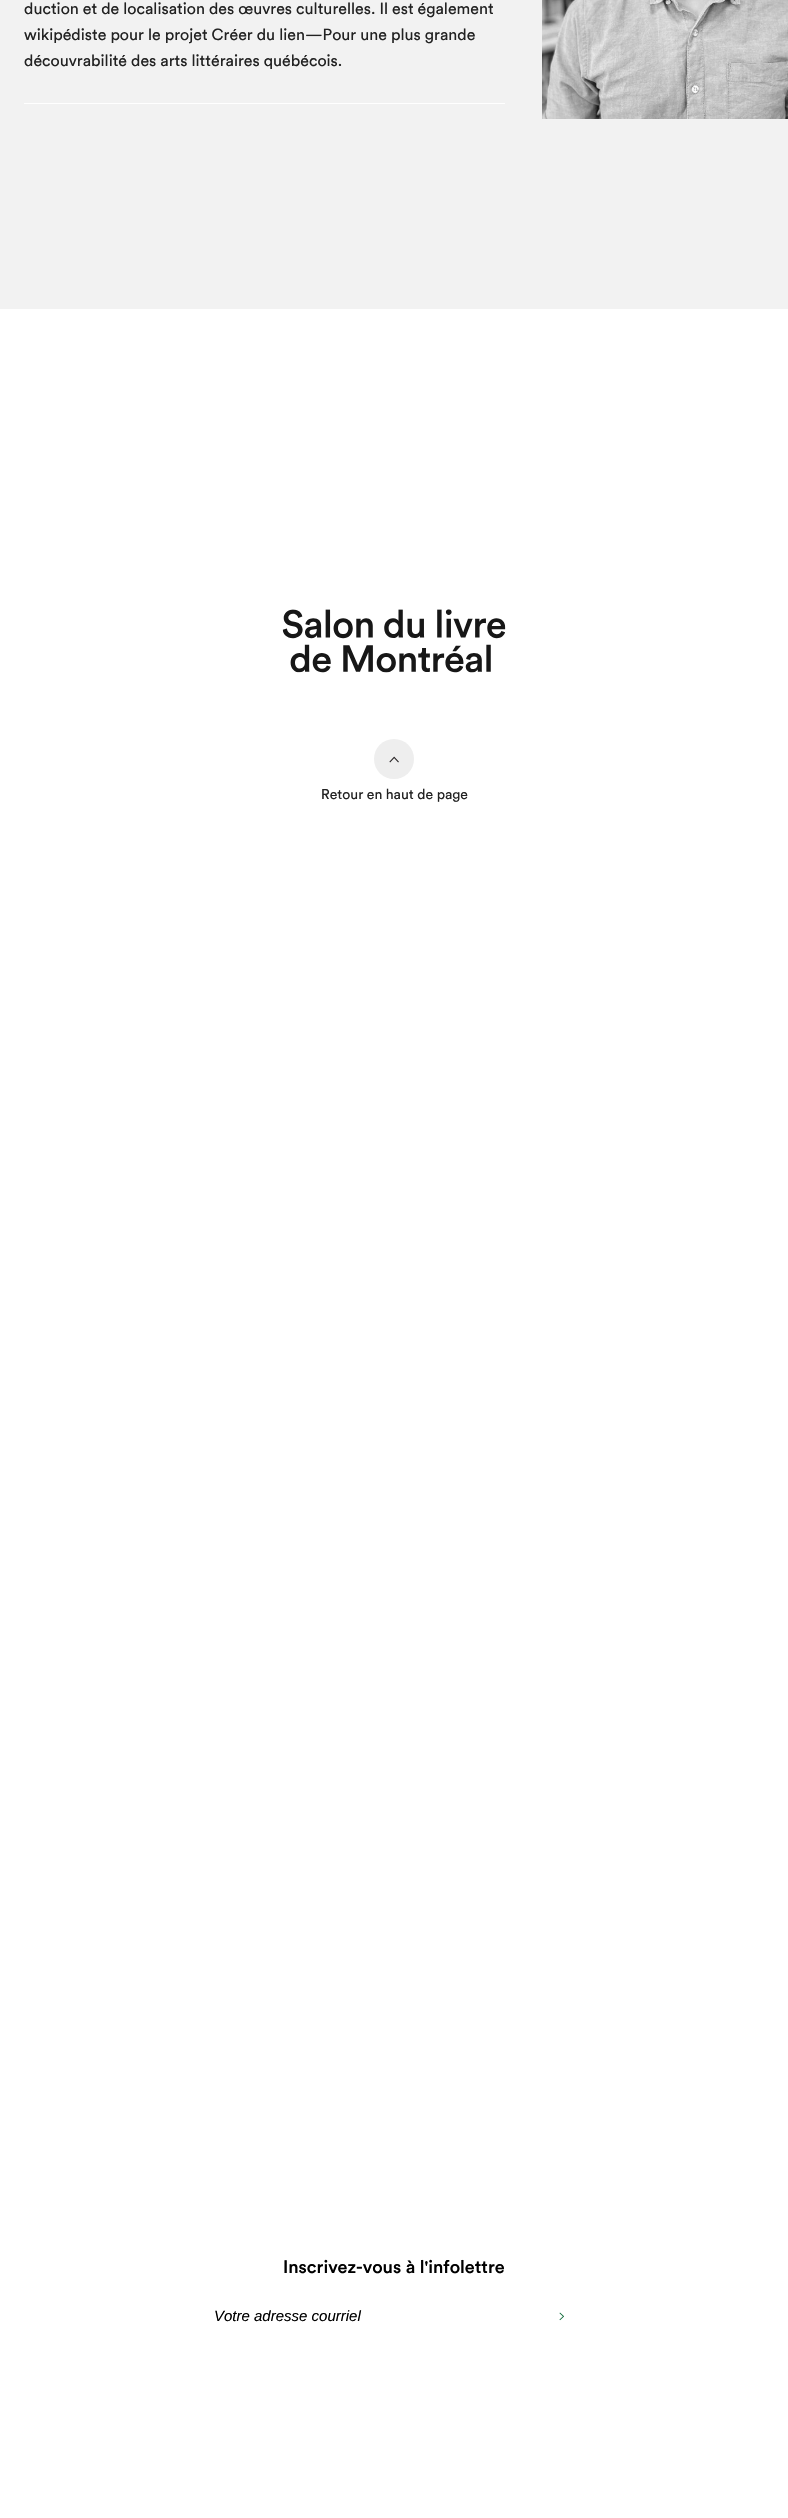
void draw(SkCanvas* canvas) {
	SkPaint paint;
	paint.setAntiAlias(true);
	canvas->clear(0xffffffff);
	paint.setColor(0xfff2f2f2);
	canvas->drawRect(SkRect::MakeXYWH(0, 0, 788, 309), paint);
	paint.setColor(0xffffffff);
	canvas->drawRect(SkRect::MakeXYWH(24, 103, 481, 1), paint);
	SkFont f1(fontMgr->matchFamilyStyle("Circular", SkFontStyle::Normal()), 16);
	f1.setSubpixel(true);
	paint.setColor(0xff222222);
	canvas->drawString("duction et de localisation des œuvres culturelles. Il est également", 24, 14, f1, paint);
	canvas->drawString("wikipédiste pour le projet Créer du lien — Pour une plus grande", 24, 40, f1, paint);
	canvas->drawString("découvrabilité des arts littéraires québécois.", 24, 66, f1, paint);
	canvas->drawImageRect(SkImages::DeferredFromEncodedData(SkData::MakeFromFileName("img1.png")), SkRect::MakeXYWH(542, 0, 246, 119), SkSamplingOptions());
	canvas->drawImageRect(SkImages::DeferredFromEncodedData(SkData::MakeFromFileName("img2.png")), SkRect::MakeXYWH(282, 609, 224, 64), SkSamplingOptions());
	paint.setColor(0xffeeeeee);
	canvas->drawCircle(394, 759, 20, paint);
	canvas->drawImageRect(SkImages::DeferredFromEncodedData(SkData::MakeFromFileName("img3.png")), SkRect::MakeXYWH(389, 756, 10, 7), SkSamplingOptions());
	SkFont f2(fontMgr->matchFamilyStyle("Circular", SkFontStyle::Normal()), 14);
	f2.setSubpixel(true);
	paint.setColor(0xff222222);
	canvas->drawString("Retour en haut de page", 321, 799, f2, paint);
	SkFont f3(fontMgr->matchFamilyStyle("Circular", SkFontStyle(500, SkFontStyle::kNormal_Width, SkFontStyle::kUpright_Slant)), 18);
	f3.setSubpixel(true);
	paint.setColor(0xff000000);
	canvas->drawString("Inscrivez-vous à l'infolettre", 283, 2273, f3, paint);
	SkFont f4(fontMgr->matchFamilyStyle("Liberation Sans", SkFontStyle::Italic()), 15);
	f4.setSubpixel(true);
	canvas->drawString("Votre adresse courriel", 214, 2321, f4, paint);
	canvas->drawImageRect(SkImages::DeferredFromEncodedData(SkData::MakeFromFileName("img4.png")), SkRect::MakeXYWH(559, 2312, 5, 9), SkSamplingOptions());
}
